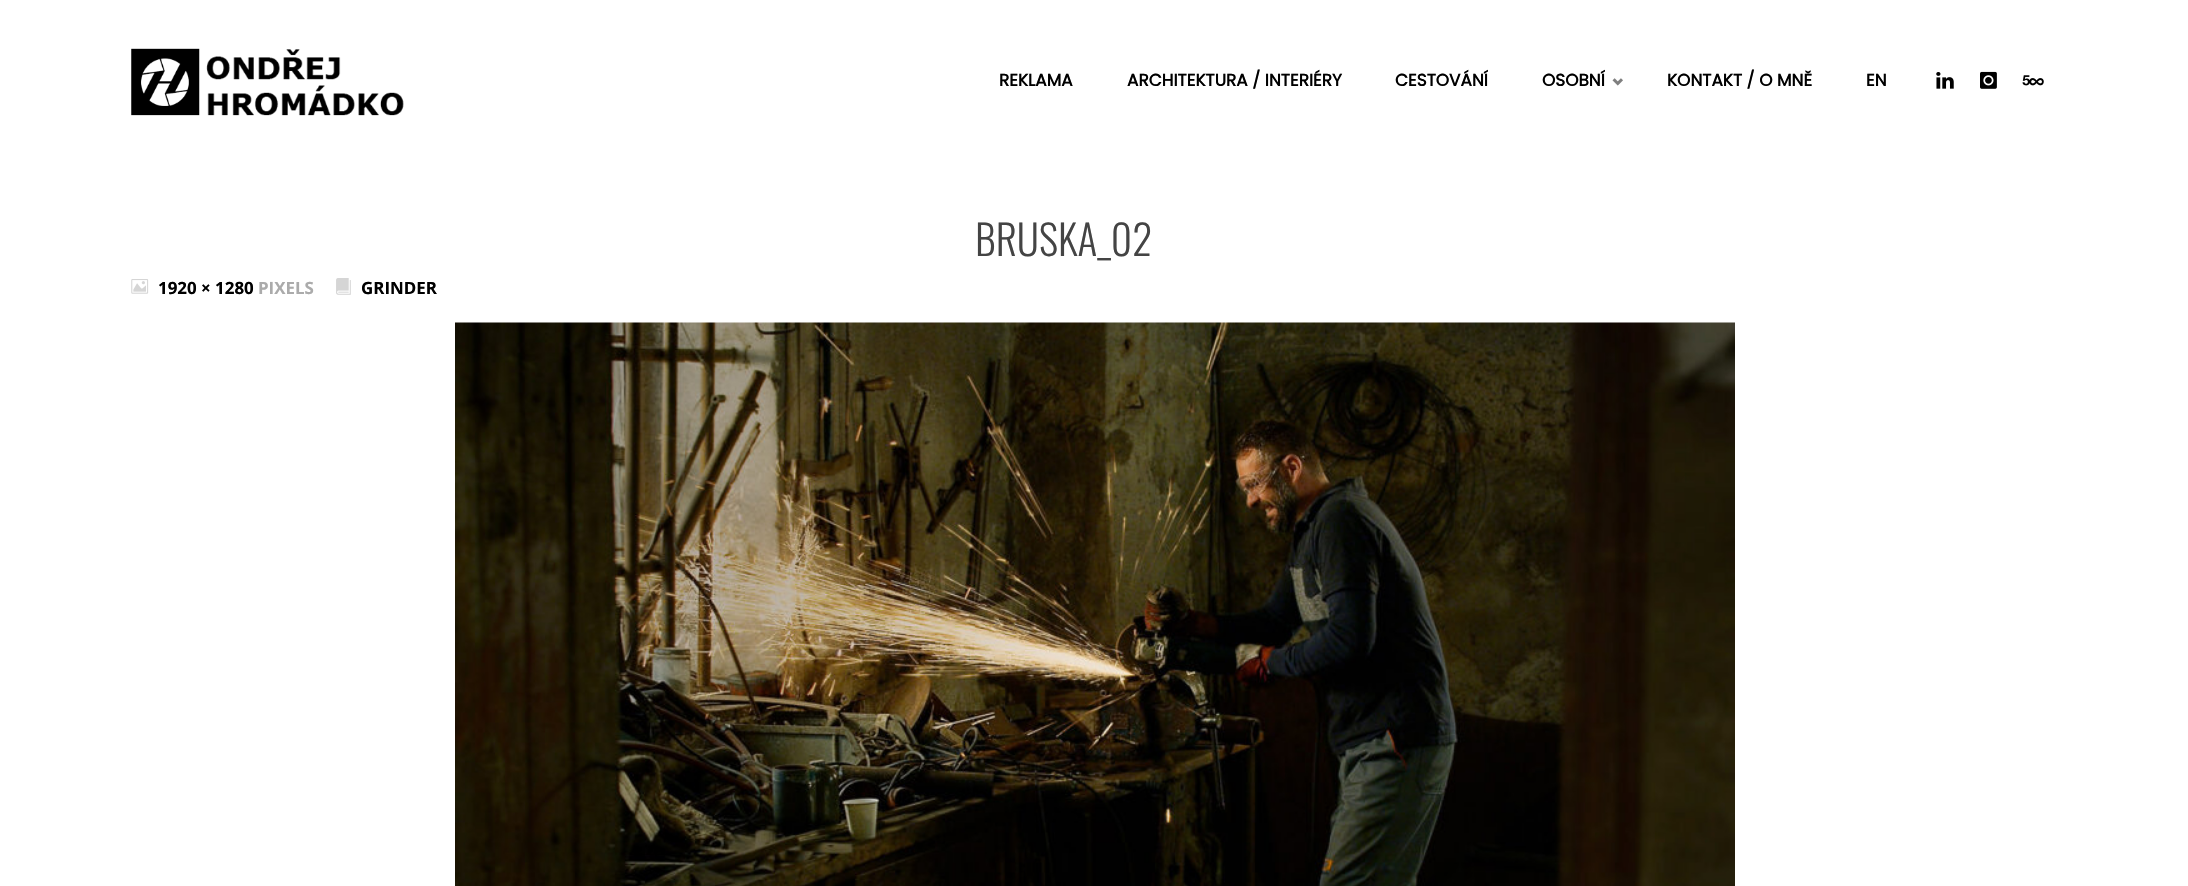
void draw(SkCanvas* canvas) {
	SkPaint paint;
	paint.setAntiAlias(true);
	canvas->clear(0xffffffff);
	canvas->drawImageRect(SkImages::DeferredFromEncodedData(SkData::MakeFromFileName("img1.png")), SkRect::MakeXYWH(131, 48, 273, 68), SkSamplingOptions());
	SkFont f1(fontMgr->matchFamilyStyle("Poppins", SkFontStyle::Bold()), 16.9);
	f1.setSubpixel(true);
	paint.setColor(0xff000000);
	canvas->drawString("REKLAMA", 999, 86, f1, paint);
	canvas->drawString("ARCHITEKTURA / INTERIÉRY", 1127, 86, f1, paint);
	canvas->drawString("CESTOVÁNÍ", 1395, 86, f1, paint);
	canvas->drawString("OSOBNÍ", 1542, 86, f1, paint);
	canvas->drawImageRect(SkImages::DeferredFromEncodedData(SkData::MakeFromFileName("img2.png")), SkRect::MakeXYWH(1612, 78, 11, 8), SkSamplingOptions());
	canvas->drawString("KONTAKT / O MNĚ", 1667, 86, f1, paint);
	canvas->drawString("EN", 1866, 86, f1, paint);
	canvas->drawImageRect(SkImages::DeferredFromEncodedData(SkData::MakeFromFileName("img3.png")), SkRect::MakeXYWH(1936, 72, 18, 17), SkSamplingOptions());
	canvas->drawImageRect(SkImages::DeferredFromEncodedData(SkData::MakeFromFileName("img4.png")), SkRect::MakeXYWH(1980, 71, 17, 18), SkSamplingOptions());
	canvas->drawImageRect(SkImages::DeferredFromEncodedData(SkData::MakeFromFileName("img5.png")), SkRect::MakeXYWH(2022, 75, 22, 11), SkSamplingOptions());
	SkFont f2(fontMgr->matchFamilyStyle("Oswald", SkFontStyle(300, SkFontStyle::kNormal_Width, SkFontStyle::kUpright_Slant)), 41.25);
	f2.setSubpixel(true);
	paint.setColor(0xff444444);
	canvas->drawString("BRUSKA_02", 975, 256, f2, paint);
	canvas->drawImageRect(SkImages::DeferredFromEncodedData(SkData::MakeFromFileName("img6.png")), SkRect::MakeXYWH(131, 279, 18, 15), SkSamplingOptions());
	SkFont f3(fontMgr->matchFamilyStyle("Open Sans", SkFontStyle::Bold()), 16.9);
	f3.setSubpixel(true);
	paint.setColor(0xff000000);
	canvas->drawString("1920 × 1280", 158, 294, f3, paint);
	paint.setColor(0xffababab);
	canvas->drawString("PIXELS", 258, 294, f3, paint);
	canvas->drawImageRect(SkImages::DeferredFromEncodedData(SkData::MakeFromFileName("img7.png")), SkRect::MakeXYWH(336, 278, 15, 17), SkSamplingOptions());
	paint.setColor(0xff000000);
	canvas->drawString("GRINDER", 361, 294, f3, paint);
	canvas->drawImageRect(SkImages::DeferredFromEncodedData(SkData::MakeFromFileName("img8.png")), SkRect::MakeXYWH(455, 322, 1280, 564), SkSamplingOptions());
}
